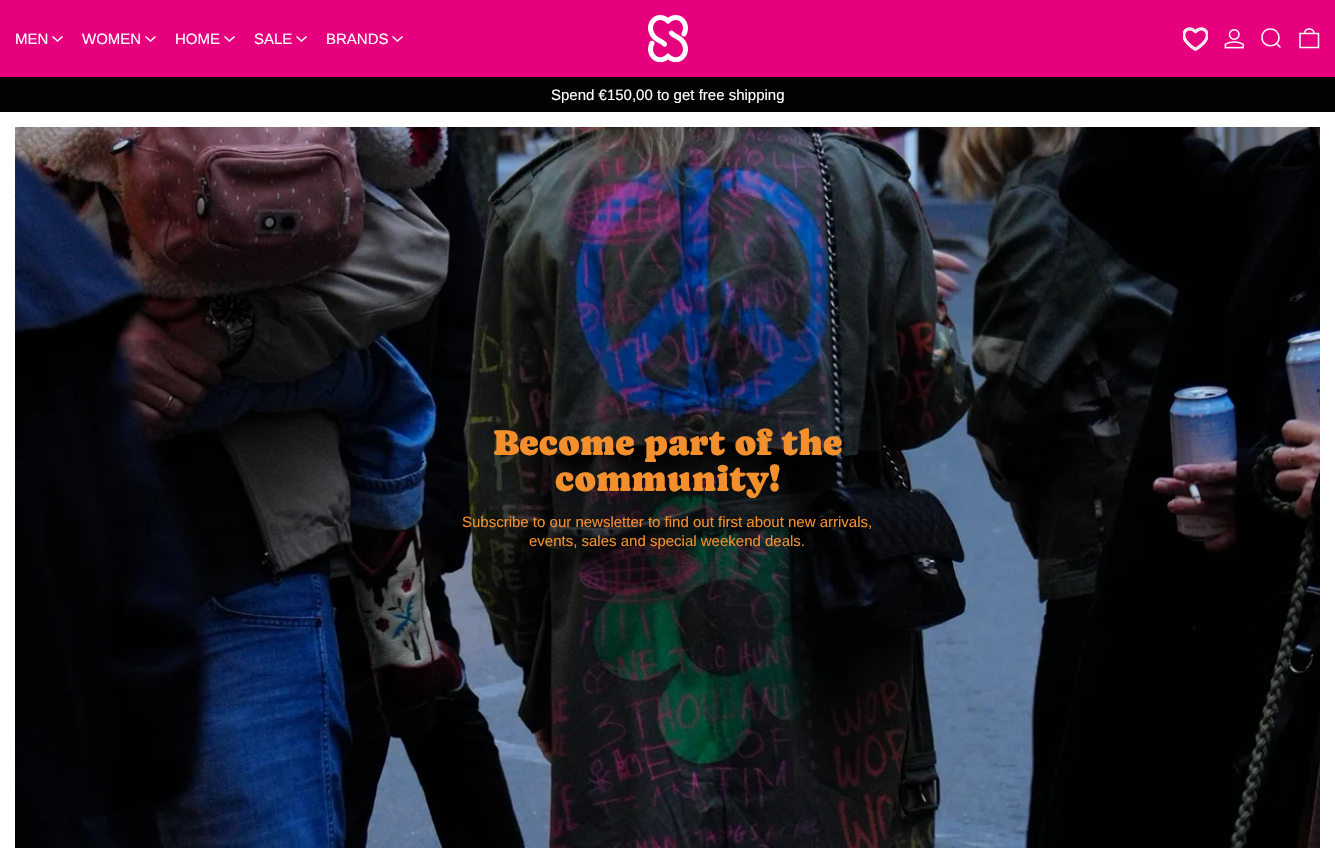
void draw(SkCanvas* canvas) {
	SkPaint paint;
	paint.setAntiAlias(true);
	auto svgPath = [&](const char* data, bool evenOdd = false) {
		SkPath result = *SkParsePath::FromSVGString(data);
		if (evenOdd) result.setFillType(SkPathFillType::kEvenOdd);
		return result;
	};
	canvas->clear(0xffffffff);
	paint.setColor(0xffe6007e);
	canvas->drawRect(SkRect::MakeXYWH(0, 0, 1335, 77), paint);
	SkFont f1(fontMgr->matchFamilyStyle("Liberation Sans", SkFontStyle::Normal()), 15);
	f1.setSubpixel(true);
	paint.setColor(0xffffffff);
	canvas->drawString("MEN", 15, 44, f1, paint);
	paint.setStroke(true);
	paint.setStrokeWidth(1.5);
	canvas->drawPath(svgPath("M52.5 36.5L57.5 41L62.5 36.5"), paint);
	paint.setStroke(false);
	canvas->drawString("WOMEN", 82, 44, f1, paint);
	paint.setStroke(true);
	canvas->drawPath(svgPath("M145.5 36.5L150.5 41L155.5 36.5"), paint);
	paint.setStroke(false);
	canvas->drawString("HOME", 175, 44, f1, paint);
	paint.setStroke(true);
	canvas->drawPath(svgPath("M224.5 36.5L229.5 41L234.5 36.5"), paint);
	paint.setStroke(false);
	canvas->drawString("SALE", 254, 44, f1, paint);
	paint.setStroke(true);
	canvas->drawPath(svgPath("M296.5 36.5L301.5 41L306.5 36.5"), paint);
	paint.setStroke(false);
	canvas->drawString("BRANDS", 326, 44, f1, paint);
	paint.setStroke(true);
	canvas->drawPath(svgPath("M392.5 36.5L397.5 41L402.5 36.5"), paint);
	canvas->drawImageRect(SkImages::DeferredFromEncodedData(SkData::MakeFromFileName("img1.png")), SkRect::MakeXYWH(648, 15, 40, 47), SkSamplingOptions());
	canvas->drawImageRect(SkImages::DeferredFromEncodedData(SkData::MakeFromFileName("img2.png")), SkRect::MakeXYWH(1183, 27, 25, 24), SkSamplingOptions());
	canvas->drawImageRect(SkImages::DeferredFromEncodedData(SkData::MakeFromFileName("img3.png")), SkRect::MakeXYWH(1224, 29, 20, 20), SkSamplingOptions());
	canvas->drawPath(svgPath("M1262 37.5C1262 48.5 1279 48.5 1279 37.5C1278.5 26 1262 26 1262 37.5ZM1276.5 43.5L1280.5 47.5"), paint);
	canvas->drawPath(svgPath("M1300 33.5H1318.5V47.5H1300ZM1314 33.5C1314 27.5 1304.5 27.5 1304.5 33.5"), paint);
	paint.setStroke(false);
	paint.setColor(0xff030303);
	canvas->drawRect(SkRect::MakeXYWH(0, 77, 1335, 35), paint);
	paint.setColor(0xffffffff);
	canvas->drawString("Spend €150,00 to get free shipping", 551, 100, f1, paint);
	canvas->drawImageRect(SkImages::DeferredFromEncodedData(SkData::MakeFromFileName("img4.png")), SkRect::MakeXYWH(15, 127, 1305, 721), SkSamplingOptions());
	SkFont f2(fontMgr->matchFamilyStyle("Caprasimo", SkFontStyle::Normal()), 36.6);
	f2.setSubpixel(true);
	paint.setColor(0xfff38f2c);
	canvas->drawString("Become part of the", 493, 455, f2, paint);
	canvas->drawString("community!", 555, 491, f2, paint);
	canvas->drawString("Subscribe to our newsletter to find out first about new arrivals,", 462, 527, f1, paint);
	canvas->drawString("events, sales and special weekend deals.", 529, 546, f1, paint);
}
